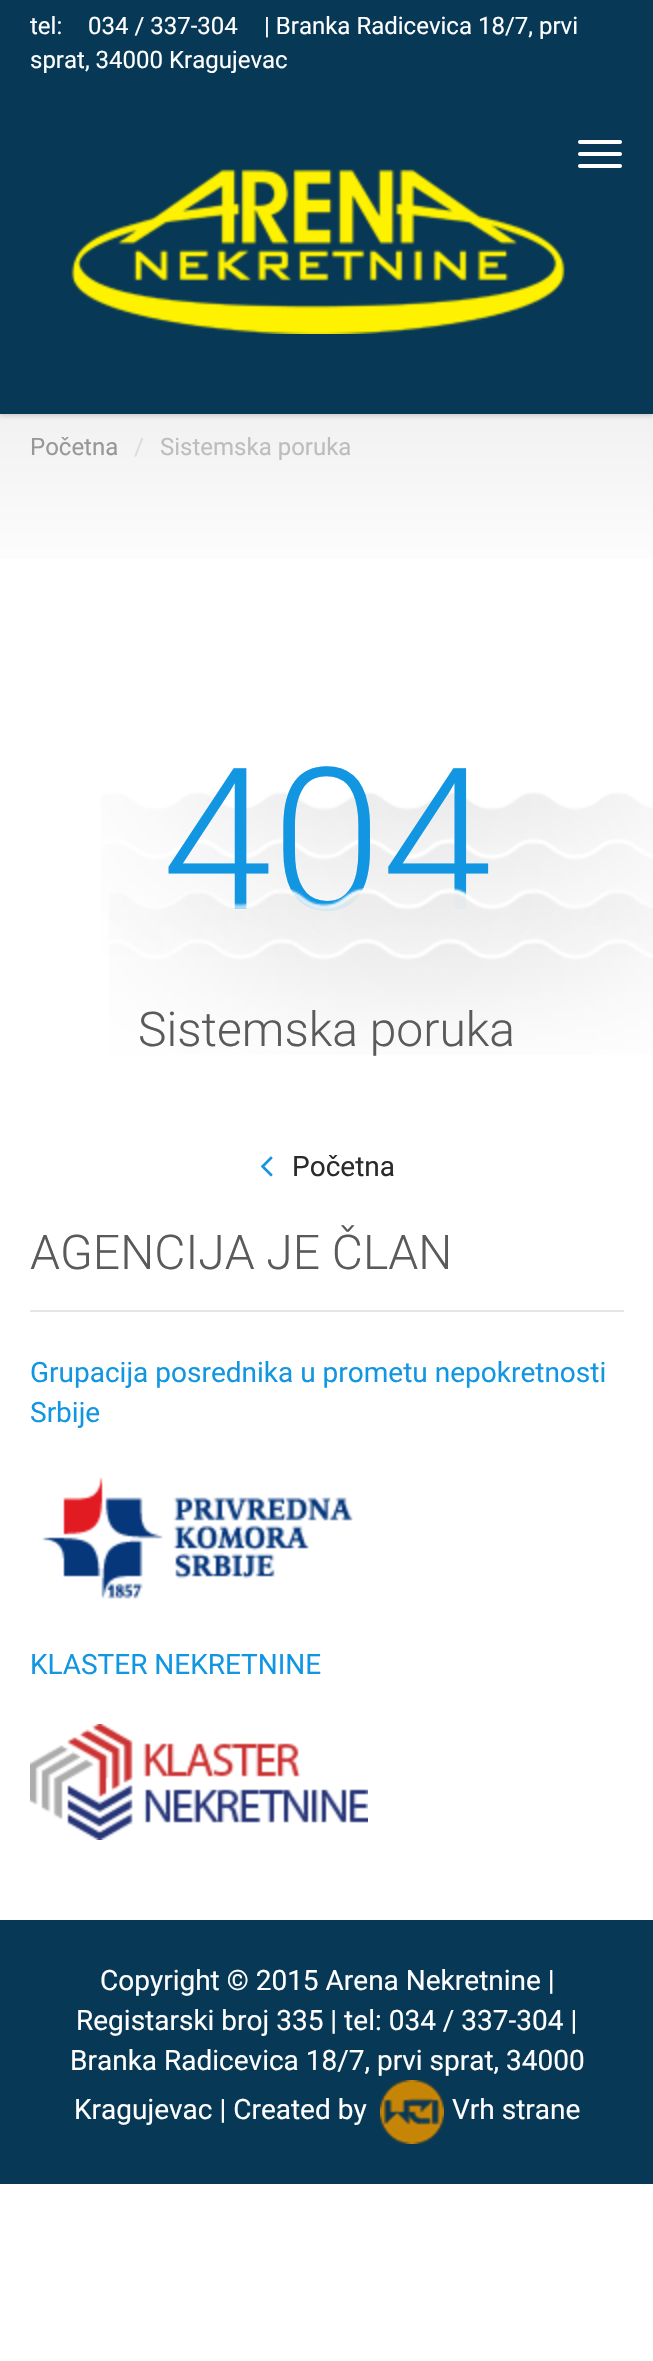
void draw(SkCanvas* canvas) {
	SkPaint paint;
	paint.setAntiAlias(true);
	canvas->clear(0xffffffff);
	{
		const SkColor colors[] = {0xfff1f1f1, 0xffffffff};
		const float stops[] = {0, 0.8};
		const SkPoint ends[] = {{327, 414}, {327, 634}};
		paint.setShader(SkGradientShader::MakeLinear(ends, colors, stops, 2, SkTileMode::kClamp));
		paint.setAlpha(255);
	}
	canvas->drawRect(SkRect::MakeXYWH(0, 414, 653, 145), paint);
	paint.setShader(nullptr);
	paint.setColor(0x26000000);
	paint.setMaskFilter(SkMaskFilter::MakeBlur(kNormal_SkBlurStyle, 2));
	canvas->drawRect(SkRect::MakeXYWH(0, 2, 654, 414), paint);
	paint.setMaskFilter(nullptr);
	paint.setColor(0xff073855);
	canvas->drawRect(SkRect::MakeXYWH(0, 0, 653, 414), paint);
	SkFont f1(fontMgr->matchFamilyStyle("Roboto", SkFontStyle::Normal()), 24);
	f1.setSubpixel(true);
	paint.setColor(0xffffffff);
	canvas->drawString("tel:", 30, 34, f1, paint);
	canvas->drawString("034 / 337-304", 88, 34, f1, paint);
	canvas->drawString("| Branka Radicevica 18/7, prvi", 264, 34, f1, paint);
	canvas->drawString("sprat, 34000 Kragujevac", 30, 68, f1, paint);
	canvas->drawRoundRect(SkRect::MakeXYWH(578, 140, 44, 4), 2, 2, paint);
	canvas->drawRoundRect(SkRect::MakeXYWH(578, 152, 44, 4), 2, 2, paint);
	canvas->drawRoundRect(SkRect::MakeXYWH(578, 164, 44, 4), 2, 2, paint);
	canvas->drawImageRect(SkImages::DeferredFromEncodedData(SkData::MakeFromFileName("img1.png")), SkRect::MakeXYWH(71, 169, 494, 165), SkSamplingOptions());
	paint.setColor(0xff979797);
	canvas->drawString("Početna", 30, 455, f1, paint);
	paint.setColor(0xffdcdcdc);
	canvas->drawString("/", 134, 455, f1, paint);
	paint.setColor(0xffbdbdbd);
	canvas->drawString("Sistemska poruka", 160, 455, f1, paint);
	canvas->drawImageRect(SkImages::DeferredFromEncodedData(SkData::MakeFromFileName("img2.png")), SkRect::MakeXYWH(101, 792, 552, 163), SkSamplingOptions());
	SkFont f2(fontMgr->matchFamilyStyle("Roboto", SkFontStyle(300, SkFontStyle::kNormal_Width, SkFontStyle::kUpright_Slant)), 198);
	f2.setSubpixel(true);
	paint.setColor(0xff1396e2);
	canvas->drawString("404", 162, 909, f2, paint);
	canvas->drawImageRect(SkImages::DeferredFromEncodedData(SkData::MakeFromFileName("img3.png")), SkRect::MakeXYWH(109, 888, 544, 167), SkSamplingOptions());
	SkFont f3(fontMgr->matchFamilyStyle("Roboto", SkFontStyle(300, SkFontStyle::kNormal_Width, SkFontStyle::kUpright_Slant)), 48);
	f3.setSubpixel(true);
	paint.setColor(0xff5a5a5a);
	canvas->drawString("Sistemska poruka", 138, 1046, f3, paint);
	canvas->drawImageRect(SkImages::DeferredFromEncodedData(SkData::MakeFromFileName("img4.png")), SkRect::MakeXYWH(260, 1156, 13, 21), SkSamplingOptions());
	SkFont f4(fontMgr->matchFamilyStyle("Roboto", SkFontStyle::Normal()), 28);
	f4.setSubpixel(true);
	paint.setColor(0xff2a2a2a);
	canvas->drawString("Početna", 292, 1176, f4, paint);
	paint.setColor(0xffe6e6e6);
	canvas->drawRect(SkRect::MakeXYWH(30, 1310, 594, 2), paint);
	paint.setColor(0xff5a5a5a);
	canvas->drawString("AGENCIJA JE ČLAN", 30, 1269, f3, paint);
	paint.setColor(0xff1396e2);
	canvas->drawString("Grupacija posrednika u prometu nepokretnosti", 30, 1382, f4, paint);
	canvas->drawString("Srbije", 30, 1422, f4, paint);
	canvas->drawImageRect(SkImages::DeferredFromEncodedData(SkData::MakeFromFileName("img5.png")), SkRect::MakeXYWH(42, 1477, 311, 122), SkSamplingOptions());
	canvas->drawString("KLASTER NEKRETNINE", 30, 1674, f4, paint);
	canvas->drawImageRect(SkImages::DeferredFromEncodedData(SkData::MakeFromFileName("img6.png")), SkRect::MakeXYWH(30, 1724, 338, 116), SkSamplingOptions());
	paint.setColor(0xff073855);
	canvas->drawRect(SkRect::MakeXYWH(0, 1920, 653, 264), paint);
	paint.setColor(0xffffffff);
	canvas->drawString("Copyright © 2015 Arena Nekretnine |", 100, 1990, f4, paint);
	canvas->drawString("Registarski broj 335 | tel: 034 / 337-304 |", 76, 2030, f4, paint);
	canvas->drawString("Branka Radicevica 18/7, prvi sprat, 34000", 70, 2070, f4, paint);
	canvas->drawString("Kragujevac | Created by", 74, 2119, f4, paint);
	canvas->drawImageRect(SkImages::DeferredFromEncodedData(SkData::MakeFromFileName("img7.png")), SkRect::MakeXYWH(380, 2080, 64, 64), SkSamplingOptions());
	canvas->drawString("Vrh strane", 452, 2119, f4, paint);
}
